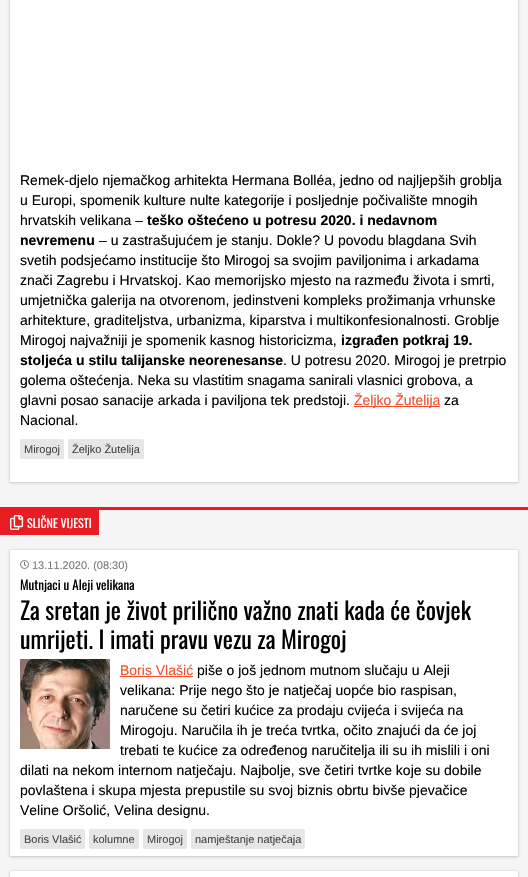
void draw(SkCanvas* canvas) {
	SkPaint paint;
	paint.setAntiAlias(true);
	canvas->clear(0xfff5f5f5);
	paint.setStroke(true);
	paint.setStrokeWidth(1);
	paint.setColor(0xffebebeb);
	canvas->drawRect(SkRect::MakeXYWH(9.5, -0.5, 509, 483), paint);
	paint.setStroke(false);
	paint.setColor(0x29000000);
	paint.setMaskFilter(SkMaskFilter::MakeBlur(kNormal_SkBlurStyle, 1.5));
	canvas->drawRect(SkRect::MakeXYWH(10, -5, 508, 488), paint);
	paint.setMaskFilter(nullptr);
	paint.setColor(0xffffffff);
	canvas->drawRect(SkRect::MakeXYWH(10, 0, 508, 482), paint);
	SkFont f1(fontMgr->matchFamilyStyle("Liberation Sans", SkFontStyle::Normal()), 14);
	f1.setSubpixel(true);
	paint.setColor(0xff000000);
	canvas->drawString("Remek-djelo njemačkog arhitekta Hermana Bolléa, jedno od najljepših groblja", 20, 185, f1, paint);
	canvas->drawString("u Europi, spomenik kulture nulte kategorije i posljednje počivalište mnogih", 20, 205, f1, paint);
	canvas->drawString("hrvatskih velikana –", 20, 225, f1, paint);
	SkFont f2(fontMgr->matchFamilyStyle("Liberation Sans", SkFontStyle::Bold()), 14);
	f2.setSubpixel(true);
	canvas->drawString("teško oštećeno u potresu 2020. i nedavnom", 147, 225, f2, paint);
	canvas->drawString("nevremenu", 20, 245, f2, paint);
	canvas->drawString("– u zastrašujućem je stanju. Dokle? U povodu blagdana Svih", 99, 245, f1, paint);
	canvas->drawString("svetih podsjećamo institucije što Mirogoj sa svojim paviljonima i arkadama", 20, 265, f1, paint);
	canvas->drawString("znači Zagrebu i Hrvatskoj. Kao memorijsko mjesto na razmeđu života i smrti,", 20, 285, f1, paint);
	canvas->drawString("umjetnička galerija na otvorenom, jedinstveni kompleks prožimanja vrhunske", 20, 305, f1, paint);
	canvas->drawString("arhitekture, graditeljstva, urbanizma, kiparstva i multikonfesionalnosti. Groblje", 20, 325, f1, paint);
	canvas->drawString("Mirogoj najvažniji je spomenik kasnog historicizma,", 20, 345, f1, paint);
	canvas->drawString("izgrađen potkraj 19.", 341, 345, f2, paint);
	canvas->drawString("stoljeća u stilu talijanske neorenesanse", 20, 365, f2, paint);
	canvas->drawString(". U potresu 2020. Mirogoj je pretrpio", 283, 365, f1, paint);
	canvas->drawString("golema oštećenja. Neka su vlastitim snagama sanirali vlasnici grobova, a", 20, 385, f1, paint);
	canvas->drawString("glavni posao sanacije arkada i paviljona tek predstoji.", 20, 405, f1, paint);
	paint.setColor(0xfffa4b2a);
	canvas->drawRect(SkRect::MakeXYWH(354, 406, 86, 1), paint);
	canvas->drawString("Željko Žutelija", 354, 405, f1, paint);
	paint.setColor(0xff000000);
	canvas->drawString("za", 444, 405, f1, paint);
	canvas->drawString("Nacional.", 20, 425, f1, paint);
	paint.setColor(0xffe6e6e6);
	canvas->drawRoundRect(SkRect::MakeXYWH(20, 439, 44, 20), 2, 2, paint);
	SkFont f3(fontMgr->matchFamilyStyle("Liberation Sans", SkFontStyle::Normal()), 11);
	f3.setSubpixel(true);
	paint.setColor(0xff454545);
	canvas->drawString("Mirogoj", 24, 453, f3, paint);
	paint.setColor(0xffe6e6e6);
	canvas->drawRoundRect(SkRect::MakeXYWH(68, 439, 76, 20), 2, 2, paint);
	paint.setColor(0xff454545);
	canvas->drawString("Željko Žutelija", 72, 453, f3, paint);
	paint.setColor(0xffe91b23);
	canvas->drawRect(SkRect::MakeXYWH(0, 507, 528, 3), paint);
	canvas->drawRect(SkRect::MakeXYWH(0, 510, 99, 25), paint);
	canvas->drawImageRect(SkImages::DeferredFromEncodedData(SkData::MakeFromFileName("img1.png")), SkRect::MakeXYWH(10, 515, 14, 15), SkSamplingOptions());
	SkFont f4(fontMgr->matchFamilyStyle("Oswald", SkFontStyle::Normal()), 12);
	f4.setSubpixel(true);
	paint.setColor(0xffffffff);
	canvas->drawString("SLIČNE VIJESTI", 27, 528, f4, paint);
	paint.setStroke(true);
	paint.setColor(0xffebebeb);
	canvas->drawRect(SkRect::MakeXYWH(9.5, 549.5, 509, 307), paint);
	paint.setStroke(false);
	paint.setColor(0x29000000);
	paint.setMaskFilter(SkMaskFilter::MakeBlur(kNormal_SkBlurStyle, 1.5));
	canvas->drawRect(SkRect::MakeXYWH(10, 551, 508, 306), paint);
	paint.setMaskFilter(nullptr);
	paint.setColor(0xffffffff);
	canvas->drawRect(SkRect::MakeXYWH(10, 550, 508, 306), paint);
	canvas->drawImageRect(SkImages::DeferredFromEncodedData(SkData::MakeFromFileName("img2.png")), SkRect::MakeXYWH(20, 560, 9, 9), SkSamplingOptions());
	paint.setColor(0xff777777);
	canvas->drawString("13.11.2020. (08:30)", 32, 569, f3, paint);
	SkFont f5(fontMgr->matchFamilyStyle("Oswald", SkFontStyle::Normal()), 13);
	f5.setSubpixel(true);
	paint.setColor(0xff000000);
	canvas->drawString("Mutnjaci u Aleji velikana", 20, 590, f5, paint);
	SkFont f6(fontMgr->matchFamilyStyle("Oswald", SkFontStyle::Normal()), 24);
	f6.setSubpixel(true);
	canvas->drawString("Za sretan je život prilično važno znati kada će čovjek", 20, 620, f6, paint);
	canvas->drawString("umrijeti. I imati pravu vezu za Mirogoj", 20, 649, f6, paint);
	canvas->drawImageRect(SkImages::DeferredFromEncodedData(SkData::MakeFromFileName("img3.png")), SkRect::MakeXYWH(20, 659, 90, 90), SkSamplingOptions());
	paint.setColor(0xfffa4b2a);
	canvas->drawString("Boris Vlašić", 120, 675, f1, paint);
	canvas->drawRect(SkRect::MakeXYWH(120, 676, 73, 1), paint);
	paint.setColor(0xff000000);
	canvas->drawString("piše o još jednom mutnom slučaju u Aleji", 197, 675, f1, paint);
	canvas->drawString("velikana: Prije nego što je natječaj uopće bio raspisan,", 120, 695, f1, paint);
	canvas->drawString("naručene su četiri kućice za prodaju cvijeća i svijeća na", 120, 715, f1, paint);
	canvas->drawString("Mirogoju. Naručila ih je treća tvrtka, očito znajući da će joj", 120, 735, f1, paint);
	canvas->drawString("trebati te kućice za određenog naručitelja ili su ih mislili i oni", 120, 755, f1, paint);
	canvas->drawString("dilati na nekom internom natječaju. Najbolje, sve četiri tvrtke koje su dobile", 20, 775, f1, paint);
	canvas->drawString("povlaštena i skupa mjesta prepustile su svoj biznis obrtu bivše pjevačice", 20, 795, f1, paint);
	canvas->drawString("Veline Oršolić, Velina designu.", 20, 815, f1, paint);
	paint.setColor(0xffe6e6e6);
	canvas->drawRoundRect(SkRect::MakeXYWH(20, 829, 65, 20), 2, 2, paint);
	paint.setColor(0xff454545);
	canvas->drawString("Boris Vlašić", 24, 843, f3, paint);
	paint.setColor(0xffe6e6e6);
	canvas->drawRoundRect(SkRect::MakeXYWH(89, 829, 50, 20), 2, 2, paint);
	paint.setColor(0xff454545);
	canvas->drawString("kolumne", 93, 843, f3, paint);
	paint.setColor(0xffe6e6e6);
	canvas->drawRoundRect(SkRect::MakeXYWH(143, 829, 44, 20), 2, 2, paint);
	paint.setColor(0xff454545);
	canvas->drawString("Mirogoj", 147, 843, f3, paint);
	paint.setColor(0xffe6e6e6);
	canvas->drawRoundRect(SkRect::MakeXYWH(191, 829, 114, 20), 2, 2, paint);
	paint.setColor(0xff454545);
	canvas->drawString("namještanje natječaja", 195, 843, f3, paint);
	paint.setStroke(true);
	paint.setColor(0xffebebeb);
	canvas->drawRect(SkRect::MakeXYWH(9.5, 870.5, 509, 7), paint);
	paint.setStroke(false);
	paint.setColor(0x29000000);
	paint.setMaskFilter(SkMaskFilter::MakeBlur(kNormal_SkBlurStyle, 1.5));
	canvas->drawRect(SkRect::MakeXYWH(10, 872, 508, 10), paint);
	paint.setMaskFilter(nullptr);
	paint.setColor(0xffffffff);
	canvas->drawRect(SkRect::MakeXYWH(10, 871, 508, 6), paint);
}
